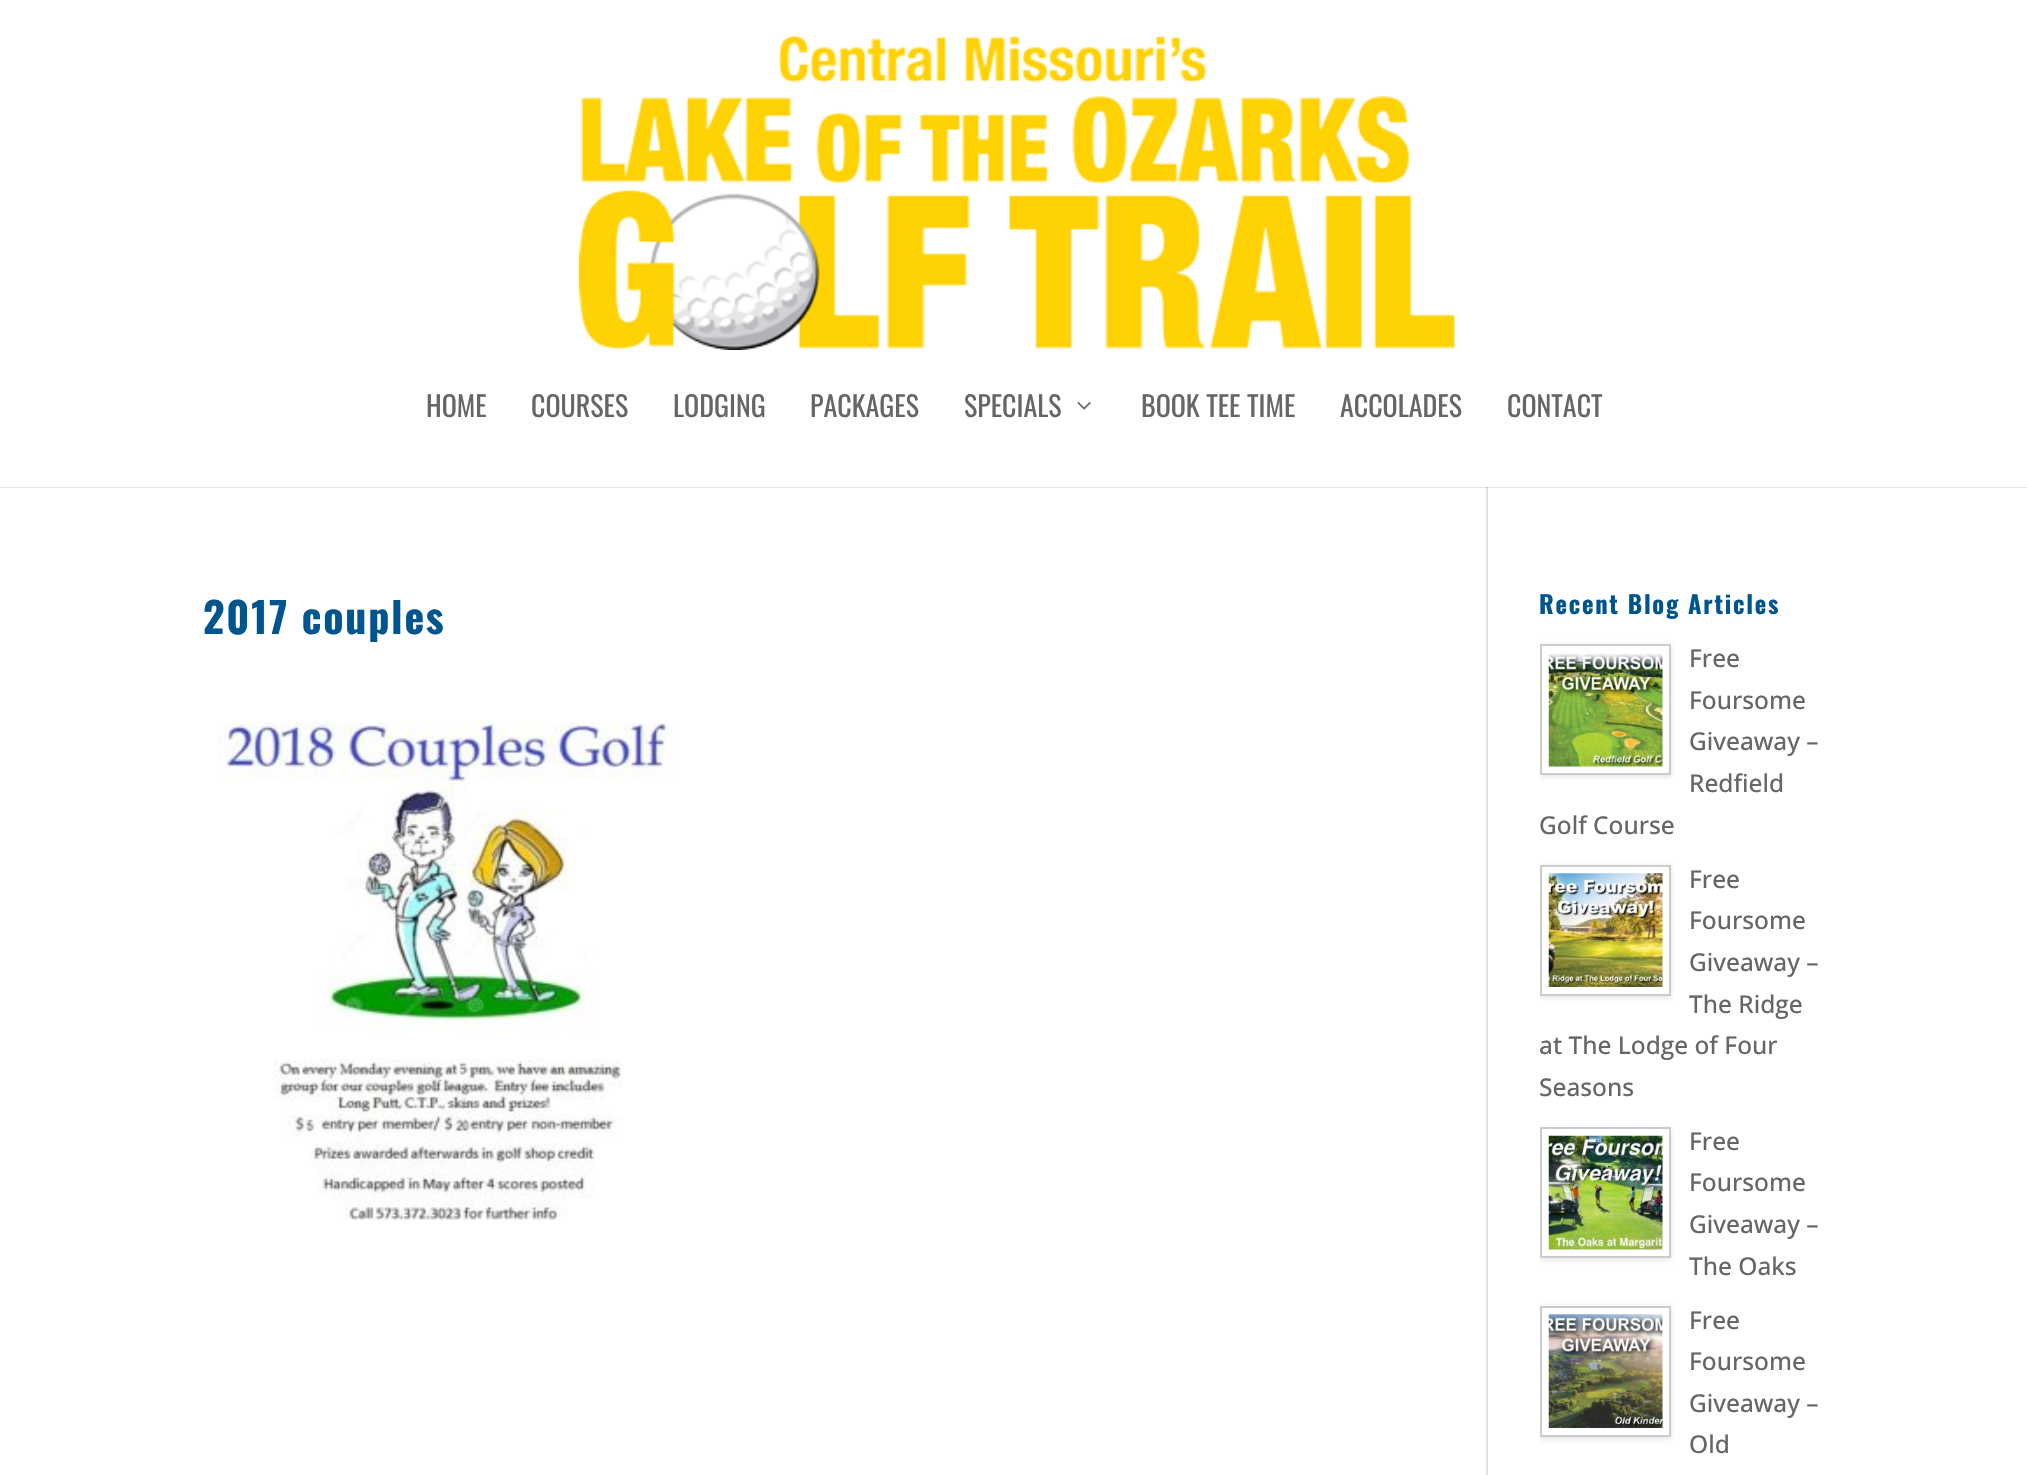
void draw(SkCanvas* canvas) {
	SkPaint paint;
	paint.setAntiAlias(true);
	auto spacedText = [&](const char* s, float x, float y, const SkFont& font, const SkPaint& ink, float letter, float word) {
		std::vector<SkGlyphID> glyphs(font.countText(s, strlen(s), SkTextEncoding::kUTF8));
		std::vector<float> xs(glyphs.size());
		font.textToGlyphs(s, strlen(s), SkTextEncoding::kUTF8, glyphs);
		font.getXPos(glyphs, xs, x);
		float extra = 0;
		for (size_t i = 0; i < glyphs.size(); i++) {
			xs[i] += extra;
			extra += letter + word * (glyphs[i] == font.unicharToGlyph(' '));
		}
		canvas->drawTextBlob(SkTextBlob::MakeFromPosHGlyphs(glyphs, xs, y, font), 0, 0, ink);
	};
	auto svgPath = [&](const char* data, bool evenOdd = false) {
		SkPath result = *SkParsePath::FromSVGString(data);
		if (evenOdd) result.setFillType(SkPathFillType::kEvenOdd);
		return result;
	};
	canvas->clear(0xffffffff);
	paint.setColor(0xffe6e6e6);
	canvas->drawRect(SkRect::MakeXYWH(0, 487, 2027, 1), paint);
	canvas->drawImageRect(SkImages::DeferredFromEncodedData(SkData::MakeFromFileName("img1.png")), SkRect::MakeXYWH(579, 36, 876, 314), SkSamplingOptions());
	SkFont f1(fontMgr->matchFamilyStyle("Oswald", SkFontStyle::Normal()), 28);
	f1.setSubpixel(true);
	paint.setColor(0xff666666);
	canvas->drawString("HOME", 426, 417, f1, paint);
	canvas->drawString("COURSES", 531, 417, f1, paint);
	canvas->drawString("LODGING", 673, 417, f1, paint);
	canvas->drawString("PACKAGES", 810, 417, f1, paint);
	canvas->drawString("SPECIALS", 964, 417, f1, paint);
	canvas->drawImageRect(SkImages::DeferredFromEncodedData(SkData::MakeFromFileName("img2.png")), SkRect::MakeXYWH(1077, 402, 14, 8), SkSamplingOptions());
	canvas->drawString("BOOK TEE TIME", 1141, 417, f1, paint);
	canvas->drawString("ACCOLADES", 1340, 417, f1, paint);
	canvas->drawString("CONTACT", 1507, 417, f1, paint);
	paint.setColor(0xffe2e2e2);
	canvas->drawRect(SkRect::MakeXYWH(1486, 487, 2, 988), paint);
	paint.setColor(0xffcbcbcb);
	canvas->drawRect(SkRect::MakeXYWH(1486, 487, 2, 1), paint);
	SkFont f2(fontMgr->matchFamilyStyle("Oswald", SkFontStyle::Bold()), 42);
	f2.setSubpixel(true);
	paint.setColor(0xff00558f);
	spacedText("2017 couples", 203, 634, f2, paint, 1.75, 0);
	canvas->drawImageRect(SkImages::DeferredFromEncodedData(SkData::MakeFromFileName("img3.png")), SkRect::MakeXYWH(216, 721, 463, 499), SkSamplingOptions());
	SkFont f3(fontMgr->matchFamilyStyle("Oswald", SkFontStyle::Bold()), 24.5);
	f3.setSubpixel(true);
	spacedText("Recent Blog Articles", 1539, 614, f3, paint, 1.75, 0);
	canvas->save();
	canvas->clipRect(SkRect::MakeXYWH(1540, 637, 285, 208));
	canvas->clipPath(svgPath("M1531 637H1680V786H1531ZM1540 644H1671V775H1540Z", true), true);
	paint.setColor(0x1a000000);
	paint.setMaskFilter(SkMaskFilter::MakeBlur(kNormal_SkBlurStyle, 2.5));
	canvas->drawRect(SkRect::MakeXYWH(1540, 646, 131, 131), paint);
	paint.setMaskFilter(nullptr);
	canvas->restore();
	paint.setStroke(true);
	paint.setStrokeWidth(2);
	paint.setColor(0xffcccccc);
	canvas->drawRect(SkRect::MakeXYWH(1541, 645, 129, 129), paint);
	canvas->drawImageRect(SkImages::DeferredFromEncodedData(SkData::MakeFromFileName("img4.png")), SkRect::MakeXYWH(1548, 653, 115, 114), SkSamplingOptions());
	SkFont f4(fontMgr->matchFamilyStyle("Open Sans", SkFontStyle(500, SkFontStyle::kNormal_Width, SkFontStyle::kUpright_Slant)), 24.5);
	f4.setSubpixel(true);
	paint.setStroke(false);
	paint.setColor(0xff666666);
	canvas->drawString("Free", 1689, 667, f4, paint);
	canvas->drawString("Foursome", 1689, 709, f4, paint);
	canvas->drawString("Giveaway –", 1689, 750, f4, paint);
	canvas->drawString("Redfield", 1689, 792, f4, paint);
	canvas->drawString("Golf Course", 1539, 834, f4, paint);
	canvas->save();
	canvas->clipRect(SkRect::MakeXYWH(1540, 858, 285, 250));
	paint.setColor(0x1a000000);
	paint.setMaskFilter(SkMaskFilter::MakeBlur(kNormal_SkBlurStyle, 2.5));
	canvas->drawRect(SkRect::MakeXYWH(1540, 866, 131, 132), paint);
	paint.setMaskFilter(nullptr);
	canvas->restore();
	paint.setColor(0xffffffff);
	canvas->drawRect(SkRect::MakeXYWH(1541, 866, 129, 129), paint);
	paint.setStroke(true);
	paint.setColor(0xffcccccc);
	canvas->drawRect(SkRect::MakeXYWH(1541, 866, 129, 129), paint);
	canvas->drawImageRect(SkImages::DeferredFromEncodedData(SkData::MakeFromFileName("img5.png")), SkRect::MakeXYWH(1548, 873, 115, 114), SkSamplingOptions());
	paint.setStroke(false);
	paint.setColor(0xff666666);
	canvas->drawString("Free", 1689, 888, f4, paint);
	canvas->drawString("Foursome", 1689, 929, f4, paint);
	canvas->drawString("Giveaway –", 1689, 971, f4, paint);
	canvas->drawString("The Ridge", 1689, 1013, f4, paint);
	canvas->drawString("at The Lodge of Four", 1539, 1054, f4, paint);
	canvas->drawString("Seasons", 1539, 1096, f4, paint);
	canvas->save();
	canvas->clipRect(SkRect::MakeXYWH(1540, 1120, 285, 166));
	canvas->clipPath(svgPath("M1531 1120H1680V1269H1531ZM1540 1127H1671V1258H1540Z", true), true);
	paint.setColor(0x1a000000);
	paint.setMaskFilter(SkMaskFilter::MakeBlur(kNormal_SkBlurStyle, 2.5));
	canvas->drawRect(SkRect::MakeXYWH(1540, 1129, 131, 131), paint);
	paint.setMaskFilter(nullptr);
	canvas->restore();
	paint.setStroke(true);
	paint.setColor(0xffcccccc);
	canvas->drawRect(SkRect::MakeXYWH(1541, 1128, 129, 129), paint);
	canvas->drawImageRect(SkImages::DeferredFromEncodedData(SkData::MakeFromFileName("img6.png")), SkRect::MakeXYWH(1548, 1135, 115, 115), SkSamplingOptions());
	paint.setStroke(false);
	paint.setColor(0xff666666);
	canvas->drawString("Free", 1689, 1150, f4, paint);
	canvas->drawString("Foursome", 1689, 1191, f4, paint);
	canvas->drawString("Giveaway –", 1689, 1233, f4, paint);
	canvas->drawString("The Oaks", 1689, 1275, f4, paint);
	canvas->save();
	canvas->clipRect(SkRect::MakeXYWH(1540, 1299, 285, 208));
	paint.setColor(0x1a000000);
	paint.setMaskFilter(SkMaskFilter::MakeBlur(kNormal_SkBlurStyle, 2.5));
	canvas->drawRect(SkRect::MakeXYWH(1540, 1307, 131, 132), paint);
	paint.setMaskFilter(nullptr);
	canvas->restore();
	paint.setColor(0xffffffff);
	canvas->drawRect(SkRect::MakeXYWH(1541, 1307, 129, 129), paint);
	paint.setStroke(true);
	paint.setColor(0xffcccccc);
	canvas->drawRect(SkRect::MakeXYWH(1541, 1307, 129, 129), paint);
	canvas->drawImageRect(SkImages::DeferredFromEncodedData(SkData::MakeFromFileName("img7.png")), SkRect::MakeXYWH(1548, 1314, 115, 114), SkSamplingOptions());
	paint.setStroke(false);
	paint.setColor(0xff666666);
	canvas->drawString("Free", 1689, 1329, f4, paint);
	canvas->drawString("Foursome", 1689, 1370, f4, paint);
	canvas->drawString("Giveaway –", 1689, 1412, f4, paint);
	canvas->drawString("Old", 1689, 1453, f4, paint);
}
